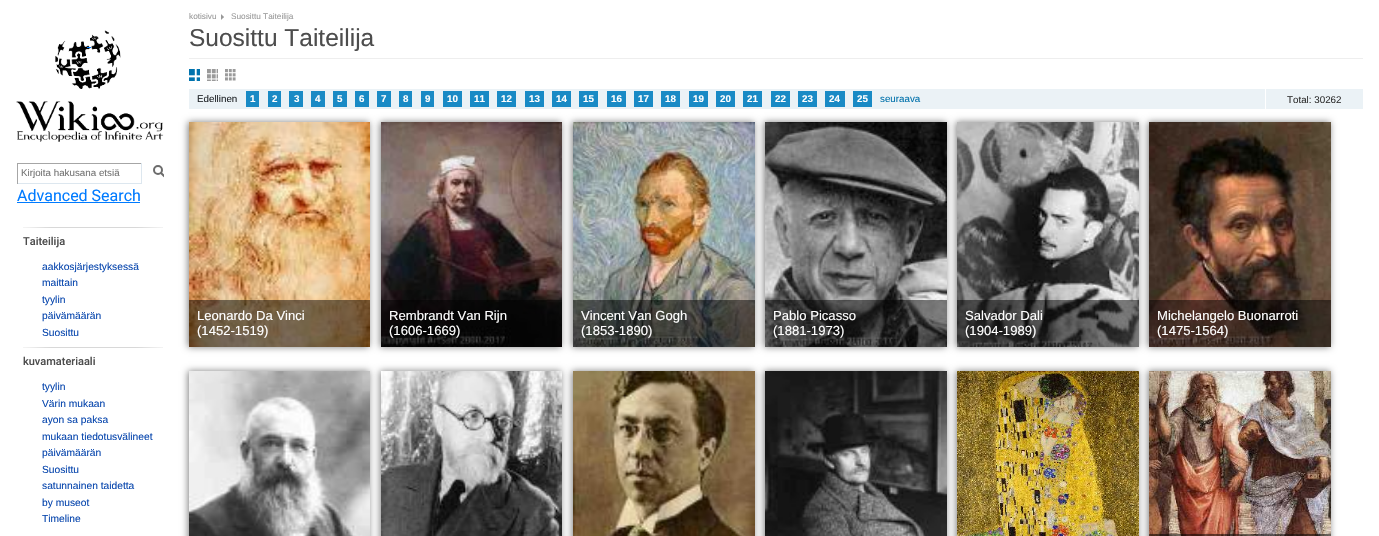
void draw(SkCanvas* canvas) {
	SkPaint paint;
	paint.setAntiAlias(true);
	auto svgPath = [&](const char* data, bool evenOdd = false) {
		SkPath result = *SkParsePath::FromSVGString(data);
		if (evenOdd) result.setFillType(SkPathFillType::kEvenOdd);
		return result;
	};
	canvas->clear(0xffffffff);
	canvas->drawImageRect(SkImages::DeferredFromEncodedData(SkData::MakeFromFileName("img1.png")), SkRect::MakeXYWH(16, 30, 148, 112), SkSamplingOptions());
	paint.setColor(0xff007bff);
	canvas->drawRect(SkRect::MakeXYWH(87, 47, 4, 1), paint);
	paint.setColor(0xffa6a6a6);
	canvas->drawRect(SkRect::MakeXYWH(17, 163, 125, 1), paint);
	paint.setColor(0xffdde7ef);
	canvas->drawRect(SkRect::MakeXYWH(141, 163, 1, 21), paint);
	canvas->drawRect(SkRect::MakeXYWH(17, 183, 125, 1), paint);
	paint.setColor(0xffa6a6a6);
	canvas->drawRect(SkRect::MakeXYWH(17, 163, 1, 21), paint);
	SkFont f1(fontMgr->matchFamilyStyle("Liberation Sans", SkFontStyle::Normal()), 9.8);
	f1.setSubpixel(true);
	paint.setColor(0xff757575);
	canvas->drawString("Kirjoita hakusana etsiä", 21, 176, f1, paint);
	canvas->save();
	canvas->clipRect(SkRect::MakeXYWH(153, 165, 11, 13));
	paint.setStroke(true);
	paint.setStrokeWidth(2);
	paint.setColor(0xff6c6c6c);
	canvas->drawPath(svgPath("M164.5 176.5L160.5 172.5"), paint);
	canvas->restore();
	canvas->drawCircle(158, 170, 4, paint);
	SkFont f2(fontMgr->matchFamilyStyle("Roboto", SkFontStyle::Normal()), 16);
	f2.setSubpixel(true);
	paint.setStroke(false);
	paint.setColor(0xff007bff);
	canvas->drawString("Advanced Search", 17, 201, f2, paint);
	canvas->drawRect(SkRect::MakeXYWH(17, 202, 123, 1), paint);
	canvas->drawImageRect(SkImages::DeferredFromEncodedData(SkData::MakeFromFileName("img2.png")), SkRect::MakeXYWH(23, 227, 140, 1), SkSamplingOptions());
	SkFont f3(fontMgr->matchFamilyStyle("Roboto", SkFontStyle(500, SkFontStyle::kNormal_Width, SkFontStyle::kUpright_Slant)), 11);
	f3.setSubpixel(true);
	paint.setColor(0xff4d4d4d);
	canvas->drawString("Taiteilija", 23, 245, f3, paint);
	SkFont f4(fontMgr->matchFamilyStyle("Liberation Sans", SkFontStyle::Normal()), 10.25);
	f4.setSubpixel(true);
	paint.setColor(0xff0645ad);
	canvas->drawString("aakkosjärjestyksessä", 42, 270, f4, paint);
	canvas->drawString("maittain", 42, 286, f4, paint);
	canvas->drawString("tyylin", 42, 303, f4, paint);
	canvas->drawString("päivämäärän", 42, 319, f4, paint);
	canvas->drawString("Suosittu", 42, 336, f4, paint);
	canvas->drawImageRect(SkImages::DeferredFromEncodedData(SkData::MakeFromFileName("img2.png")), SkRect::MakeXYWH(23, 347, 140, 1), SkSamplingOptions());
	paint.setColor(0xff4d4d4d);
	canvas->drawString("kuvamateriaali", 23, 365, f3, paint);
	paint.setColor(0xff0645ad);
	canvas->drawString("tyylin", 42, 390, f4, paint);
	canvas->drawString("Värin mukaan", 42, 407, f4, paint);
	canvas->drawString("ayon sa paksa", 42, 423, f4, paint);
	canvas->drawString("mukaan tiedotusvälineet", 42, 440, f4, paint);
	canvas->drawString("päivämäärän", 42, 456, f4, paint);
	canvas->drawString("Suosittu", 42, 473, f4, paint);
	canvas->drawString("satunnainen taidetta", 42, 489, f4, paint);
	canvas->drawString("by museot", 42, 506, f4, paint);
	canvas->drawString("Timeline", 42, 522, f4, paint);
	SkFont f5(fontMgr->matchFamilyStyle("Liberation Sans", SkFontStyle::Normal()), 8.25);
	f5.setSubpixel(true);
	paint.setColor(0xff999999);
	canvas->drawString("kotisivu", 189, 19, f5, paint);
	canvas->drawImageRect(SkImages::DeferredFromEncodedData(SkData::MakeFromFileName("img3.png")), SkRect::MakeXYWH(221, 14, 3, 6), SkSamplingOptions());
	canvas->drawString("Suosittu Taiteilija", 231, 19, f5, paint);
	SkFont f6(fontMgr->matchFamilyStyle("Liberation Sans", SkFontStyle::Normal()), 24.5);
	f6.setSubpixel(true);
	paint.setColor(0xff4d4d4d);
	canvas->drawString("Suosittu Taiteilija", 189, 46, f6, paint);
	paint.setColor(0xffeeeeee);
	canvas->drawRect(SkRect::MakeXYWH(189, 58, 1174, 1), paint);
	canvas->drawImageRect(SkImages::DeferredFromEncodedData(SkData::MakeFromFileName("img4.png")), SkRect::MakeXYWH(189, 69, 11, 12), SkSamplingOptions());
	canvas->drawImageRect(SkImages::DeferredFromEncodedData(SkData::MakeFromFileName("img5.png")), SkRect::MakeXYWH(207, 69, 11, 12), SkSamplingOptions());
	canvas->drawImageRect(SkImages::DeferredFromEncodedData(SkData::MakeFromFileName("img6.png")), SkRect::MakeXYWH(225, 69, 11, 12), SkSamplingOptions());
	paint.setColor(0xffebf2f6);
	canvas->drawRect(SkRect::MakeXYWH(189, 89, 1076, 20), paint);
	paint.setColor(0xff212529);
	canvas->drawString("Edellinen", 197, 102, f1, paint);
	paint.setColor(0xff198ac5);
	canvas->drawRect(SkRect::MakeXYWH(246, 91, 13, 16), paint);
	SkFont f7(fontMgr->matchFamilyStyle("Liberation Sans", SkFontStyle::Bold()), 9.8);
	f7.setSubpixel(true);
	paint.setColor(0xffffffff);
	canvas->drawString("1", 250, 102, f7, paint);
	paint.setColor(0xff198ac5);
	canvas->drawRect(SkRect::MakeXYWH(268, 91, 13, 16), paint);
	paint.setColor(0xffffffff);
	canvas->drawString("2", 272, 102, f7, paint);
	paint.setColor(0xff198ac5);
	canvas->drawRect(SkRect::MakeXYWH(289, 91, 14, 16), paint);
	paint.setColor(0xffffffff);
	canvas->drawString("3", 294, 102, f7, paint);
	paint.setColor(0xff198ac5);
	canvas->drawRect(SkRect::MakeXYWH(311, 91, 14, 16), paint);
	paint.setColor(0xffffffff);
	canvas->drawString("4", 315, 102, f7, paint);
	paint.setColor(0xff198ac5);
	canvas->drawRect(SkRect::MakeXYWH(333, 91, 14, 16), paint);
	paint.setColor(0xffffffff);
	canvas->drawString("5", 337, 102, f7, paint);
	paint.setColor(0xff198ac5);
	canvas->drawRect(SkRect::MakeXYWH(355, 91, 14, 16), paint);
	paint.setColor(0xffffffff);
	canvas->drawString("6", 359, 102, f7, paint);
	paint.setColor(0xff198ac5);
	canvas->drawRect(SkRect::MakeXYWH(377, 91, 14, 16), paint);
	paint.setColor(0xffffffff);
	canvas->drawString("7", 381, 102, f7, paint);
	paint.setColor(0xff198ac5);
	canvas->drawRect(SkRect::MakeXYWH(399, 91, 13, 16), paint);
	paint.setColor(0xffffffff);
	canvas->drawString("8", 403, 102, f7, paint);
	paint.setColor(0xff198ac5);
	canvas->drawRect(SkRect::MakeXYWH(421, 91, 13, 16), paint);
	paint.setColor(0xffffffff);
	canvas->drawString("9", 425, 102, f7, paint);
	paint.setColor(0xff198ac5);
	canvas->drawRect(SkRect::MakeXYWH(443, 91, 19, 16), paint);
	paint.setColor(0xffffffff);
	canvas->drawString("10", 447, 102, f7, paint);
	paint.setColor(0xff198ac5);
	canvas->drawRect(SkRect::MakeXYWH(470, 91, 19, 16), paint);
	paint.setColor(0xffffffff);
	canvas->drawString("11", 474, 102, f7, paint);
	paint.setColor(0xff198ac5);
	canvas->drawRect(SkRect::MakeXYWH(497, 91, 19, 16), paint);
	paint.setColor(0xffffffff);
	canvas->drawString("12", 501, 102, f7, paint);
	paint.setColor(0xff198ac5);
	canvas->drawRect(SkRect::MakeXYWH(525, 91, 19, 16), paint);
	paint.setColor(0xffffffff);
	canvas->drawString("13", 529, 102, f7, paint);
	paint.setColor(0xff198ac5);
	canvas->drawRect(SkRect::MakeXYWH(552, 91, 19, 16), paint);
	paint.setColor(0xffffffff);
	canvas->drawString("14", 556, 102, f7, paint);
	paint.setColor(0xff198ac5);
	canvas->drawRect(SkRect::MakeXYWH(579, 91, 19, 16), paint);
	paint.setColor(0xffffffff);
	canvas->drawString("15", 583, 102, f7, paint);
	paint.setColor(0xff198ac5);
	canvas->drawRect(SkRect::MakeXYWH(607, 91, 19, 16), paint);
	paint.setColor(0xffffffff);
	canvas->drawString("16", 611, 102, f7, paint);
	paint.setColor(0xff198ac5);
	canvas->drawRect(SkRect::MakeXYWH(634, 91, 19, 16), paint);
	paint.setColor(0xffffffff);
	canvas->drawString("17", 638, 102, f7, paint);
	paint.setColor(0xff198ac5);
	canvas->drawRect(SkRect::MakeXYWH(661, 91, 19, 16), paint);
	paint.setColor(0xffffffff);
	canvas->drawString("18", 665, 102, f7, paint);
	paint.setColor(0xff198ac5);
	canvas->drawRect(SkRect::MakeXYWH(689, 91, 19, 16), paint);
	paint.setColor(0xffffffff);
	canvas->drawString("19", 693, 102, f7, paint);
	paint.setColor(0xff198ac5);
	canvas->drawRect(SkRect::MakeXYWH(716, 91, 19, 16), paint);
	paint.setColor(0xffffffff);
	canvas->drawString("20", 720, 102, f7, paint);
	paint.setColor(0xff198ac5);
	canvas->drawRect(SkRect::MakeXYWH(743, 91, 19, 16), paint);
	paint.setColor(0xffffffff);
	canvas->drawString("21", 747, 102, f7, paint);
	paint.setColor(0xff198ac5);
	canvas->drawRect(SkRect::MakeXYWH(771, 91, 19, 16), paint);
	paint.setColor(0xffffffff);
	canvas->drawString("22", 775, 102, f7, paint);
	paint.setColor(0xff198ac5);
	canvas->drawRect(SkRect::MakeXYWH(798, 91, 19, 16), paint);
	paint.setColor(0xffffffff);
	canvas->drawString("23", 802, 102, f7, paint);
	paint.setColor(0xff198ac5);
	canvas->drawRect(SkRect::MakeXYWH(825, 91, 20, 16), paint);
	paint.setColor(0xffffffff);
	canvas->drawString("24", 829, 102, f7, paint);
	paint.setColor(0xff198ac5);
	canvas->drawRect(SkRect::MakeXYWH(853, 91, 19, 16), paint);
	paint.setColor(0xffffffff);
	canvas->drawString("25", 857, 102, f7, paint);
	paint.setColor(0xff0071ab);
	canvas->drawString("seuraava", 880, 102, f1, paint);
	paint.setColor(0xffebf2f6);
	canvas->drawRect(SkRect::MakeXYWH(1266, 89, 97, 20), paint);
	paint.setColor(0xff333333);
	canvas->drawString("Total: 30262", 1287, 103, f1, paint);
	paint.setColor(0x80000000);
	paint.setMaskFilter(SkMaskFilter::MakeBlur(kNormal_SkBlurStyle, 3.5));
	canvas->drawRect(SkRect::MakeXYWH(188, 122, 181, 225), paint);
	paint.setMaskFilter(nullptr);
	paint.setMaskFilter(SkMaskFilter::MakeBlur(kNormal_SkBlurStyle, 3.5));
	canvas->drawRect(SkRect::MakeXYWH(380, 122, 181, 225), paint);
	paint.setMaskFilter(nullptr);
	canvas->drawImageRect(SkImages::DeferredFromEncodedData(SkData::MakeFromFileName("img7.png")), SkRect::MakeXYWH(189, 122, 181, 225), SkSamplingOptions());
	canvas->drawRect(SkRect::MakeXYWH(189, 300, 181, 47), paint);
	SkFont f8(fontMgr->matchFamilyStyle("Liberation Sans", SkFontStyle::Normal()), 13.1);
	f8.setSubpixel(true);
	paint.setColor(0xffffffff);
	canvas->drawString("Leonardo Da Vinci", 197, 320, f8, paint);
	canvas->drawString("(1452-1519)", 197, 335, f8, paint);
	paint.setColor(0x80000000);
	paint.setMaskFilter(SkMaskFilter::MakeBlur(kNormal_SkBlurStyle, 3.5));
	canvas->drawRect(SkRect::MakeXYWH(572, 122, 182, 225), paint);
	paint.setMaskFilter(nullptr);
	canvas->drawImageRect(SkImages::DeferredFromEncodedData(SkData::MakeFromFileName("img8.png")), SkRect::MakeXYWH(381, 122, 181, 225), SkSamplingOptions());
	canvas->drawRect(SkRect::MakeXYWH(381, 300, 181, 47), paint);
	paint.setColor(0xffffffff);
	canvas->drawString("Rembrandt Van Rijn", 389, 320, f8, paint);
	canvas->drawString("(1606-1669)", 389, 335, f8, paint);
	paint.setColor(0x80000000);
	paint.setMaskFilter(SkMaskFilter::MakeBlur(kNormal_SkBlurStyle, 3.5));
	canvas->drawRect(SkRect::MakeXYWH(764, 122, 182, 225), paint);
	paint.setMaskFilter(nullptr);
	canvas->drawImageRect(SkImages::DeferredFromEncodedData(SkData::MakeFromFileName("img9.png")), SkRect::MakeXYWH(573, 122, 182, 225), SkSamplingOptions());
	canvas->drawRect(SkRect::MakeXYWH(573, 300, 182, 47), paint);
	paint.setColor(0xffffffff);
	canvas->drawString("Vincent Van Gogh", 581, 320, f8, paint);
	canvas->drawString("(1853-1890)", 581, 335, f8, paint);
	paint.setColor(0x80000000);
	paint.setMaskFilter(SkMaskFilter::MakeBlur(kNormal_SkBlurStyle, 3.5));
	canvas->drawRect(SkRect::MakeXYWH(956, 122, 182, 225), paint);
	paint.setMaskFilter(nullptr);
	canvas->drawImageRect(SkImages::DeferredFromEncodedData(SkData::MakeFromFileName("img10.png")), SkRect::MakeXYWH(765, 122, 182, 225), SkSamplingOptions());
	canvas->drawRect(SkRect::MakeXYWH(765, 300, 182, 47), paint);
	paint.setColor(0xffffffff);
	canvas->drawString("Pablo Picasso", 773, 320, f8, paint);
	canvas->drawString("(1881-1973)", 773, 335, f8, paint);
	paint.setColor(0x80000000);
	paint.setMaskFilter(SkMaskFilter::MakeBlur(kNormal_SkBlurStyle, 3.5));
	canvas->drawRect(SkRect::MakeXYWH(1148, 122, 182, 225), paint);
	paint.setMaskFilter(nullptr);
	canvas->drawImageRect(SkImages::DeferredFromEncodedData(SkData::MakeFromFileName("img11.png")), SkRect::MakeXYWH(957, 122, 182, 225), SkSamplingOptions());
	canvas->drawRect(SkRect::MakeXYWH(957, 300, 182, 47), paint);
	paint.setColor(0xffffffff);
	canvas->drawString("Salvador Dali", 965, 320, f8, paint);
	canvas->drawString("(1904-1989)", 965, 335, f8, paint);
	canvas->drawImageRect(SkImages::DeferredFromEncodedData(SkData::MakeFromFileName("img12.png")), SkRect::MakeXYWH(1149, 122, 182, 225), SkSamplingOptions());
	paint.setColor(0x80000000);
	canvas->drawRect(SkRect::MakeXYWH(1149, 300, 182, 47), paint);
	paint.setColor(0xffffffff);
	canvas->drawString("Michelangelo Buonarroti", 1157, 320, f8, paint);
	canvas->drawString("(1475-1564)", 1157, 335, f8, paint);
	paint.setColor(0x80000000);
	paint.setMaskFilter(SkMaskFilter::MakeBlur(kNormal_SkBlurStyle, 3.5));
	canvas->drawRect(SkRect::MakeXYWH(188, 371, 181, 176), paint);
	paint.setMaskFilter(nullptr);
	paint.setMaskFilter(SkMaskFilter::MakeBlur(kNormal_SkBlurStyle, 3.5));
	canvas->drawRect(SkRect::MakeXYWH(380, 371, 181, 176), paint);
	paint.setMaskFilter(nullptr);
	canvas->drawImageRect(SkImages::DeferredFromEncodedData(SkData::MakeFromFileName("img13.png")), SkRect::MakeXYWH(189, 371, 181, 165), SkSamplingOptions());
	paint.setMaskFilter(SkMaskFilter::MakeBlur(kNormal_SkBlurStyle, 3.5));
	canvas->drawRect(SkRect::MakeXYWH(572, 371, 182, 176), paint);
	paint.setMaskFilter(nullptr);
	canvas->drawImageRect(SkImages::DeferredFromEncodedData(SkData::MakeFromFileName("img14.png")), SkRect::MakeXYWH(381, 371, 181, 165), SkSamplingOptions());
	paint.setMaskFilter(SkMaskFilter::MakeBlur(kNormal_SkBlurStyle, 3.5));
	canvas->drawRect(SkRect::MakeXYWH(764, 371, 182, 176), paint);
	paint.setMaskFilter(nullptr);
	canvas->drawImageRect(SkImages::DeferredFromEncodedData(SkData::MakeFromFileName("img15.png")), SkRect::MakeXYWH(573, 371, 182, 165), SkSamplingOptions());
	paint.setMaskFilter(SkMaskFilter::MakeBlur(kNormal_SkBlurStyle, 3.5));
	canvas->drawRect(SkRect::MakeXYWH(956, 371, 182, 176), paint);
	paint.setMaskFilter(nullptr);
	canvas->drawImageRect(SkImages::DeferredFromEncodedData(SkData::MakeFromFileName("img16.png")), SkRect::MakeXYWH(765, 371, 182, 165), SkSamplingOptions());
	paint.setMaskFilter(SkMaskFilter::MakeBlur(kNormal_SkBlurStyle, 3.5));
	canvas->drawRect(SkRect::MakeXYWH(1148, 371, 182, 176), paint);
	paint.setMaskFilter(nullptr);
	canvas->drawImageRect(SkImages::DeferredFromEncodedData(SkData::MakeFromFileName("img17.png")), SkRect::MakeXYWH(957, 371, 182, 165), SkSamplingOptions());
	canvas->drawImageRect(SkImages::DeferredFromEncodedData(SkData::MakeFromFileName("img18.png")), SkRect::MakeXYWH(1149, 371, 182, 165), SkSamplingOptions());
	canvas->drawRect(SkRect::MakeXYWH(1149, 534, 182, 2), paint);
}
